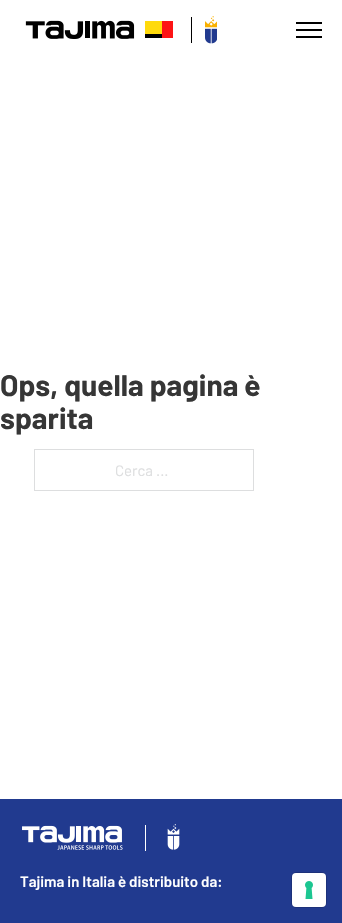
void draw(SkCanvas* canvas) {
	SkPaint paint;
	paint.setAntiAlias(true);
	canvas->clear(0xffffffff);
	paint.setColor(0xff000000);
	canvas->drawRect(SkRect::MakeXYWH(191, 17, 1, 26), paint);
	canvas->drawImageRect(SkImages::DeferredFromEncodedData(SkData::MakeFromFileName("img1.png")), SkRect::MakeXYWH(25, 20, 148, 19), SkSamplingOptions());
	canvas->drawImageRect(SkImages::DeferredFromEncodedData(SkData::MakeFromFileName("img2.png")), SkRect::MakeXYWH(205, 16, 12, 28), SkSamplingOptions());
	canvas->drawRect(SkRect::MakeXYWH(296, 22, 26, 2), paint);
	canvas->drawRect(SkRect::MakeXYWH(296, 29, 26, 2), paint);
	canvas->drawRect(SkRect::MakeXYWH(296, 36, 26, 2), paint);
	SkFont f1(fontMgr->matchFamilyStyle("Barlow", SkFontStyle::Bold()), 29.75);
	f1.setSubpixel(true);
	paint.setColor(0xff363636);
	canvas->drawString("Ops, quella pagina è", 0, 396, f1, paint);
	canvas->drawString("sparita", 0, 429, f1, paint);
	paint.setStroke(true);
	paint.setStrokeWidth(1);
	paint.setColor(0xffdddedf);
	canvas->drawRect(SkRect::MakeXYWH(34.5, 449.5, 219, 41), paint);
	SkFont f2(fontMgr->matchFamilyStyle("Barlow", SkFontStyle::Normal()), 15);
	f2.setSubpixel(true);
	paint.setStroke(false);
	canvas->drawString("Cerca ...", 115, 476, f2, paint);
	paint.setColor(0xff213a8f);
	canvas->drawRect(SkRect::MakeXYWH(0, 799, 342, 124), paint);
	paint.setColor(0xffffffff);
	canvas->drawRect(SkRect::MakeXYWH(145, 825, 1, 26), paint);
	canvas->drawImageRect(SkImages::DeferredFromEncodedData(SkData::MakeFromFileName("img3.png")), SkRect::MakeXYWH(22, 825, 101, 25), SkSamplingOptions());
	canvas->drawImageRect(SkImages::DeferredFromEncodedData(SkData::MakeFromFileName("img4.png")), SkRect::MakeXYWH(167, 824, 13, 26), SkSamplingOptions());
	SkFont f3(fontMgr->matchFamilyStyle("Barlow", SkFontStyle(600, SkFontStyle::kNormal_Width, SkFontStyle::kUpright_Slant)), 15);
	f3.setSubpixel(true);
	canvas->drawString("Tajima in Italia è distribuito da:", 20, 887, f3, paint);
	paint.setStroke(true);
	paint.setColor(0xff1c317a);
	canvas->drawRoundRect(SkRect::MakeXYWH(291.5, 872.5, 35, 35), 4.5, 4.5, paint);
	paint.setStroke(false);
	paint.setColor(0xffffffff);
	canvas->drawRoundRect(SkRect::MakeXYWH(292, 873, 34, 34), 4, 4, paint);
	canvas->drawImageRect(SkImages::DeferredFromEncodedData(SkData::MakeFromFileName("img5.png")), SkRect::MakeXYWH(305, 881, 8, 18), SkSamplingOptions());
}
